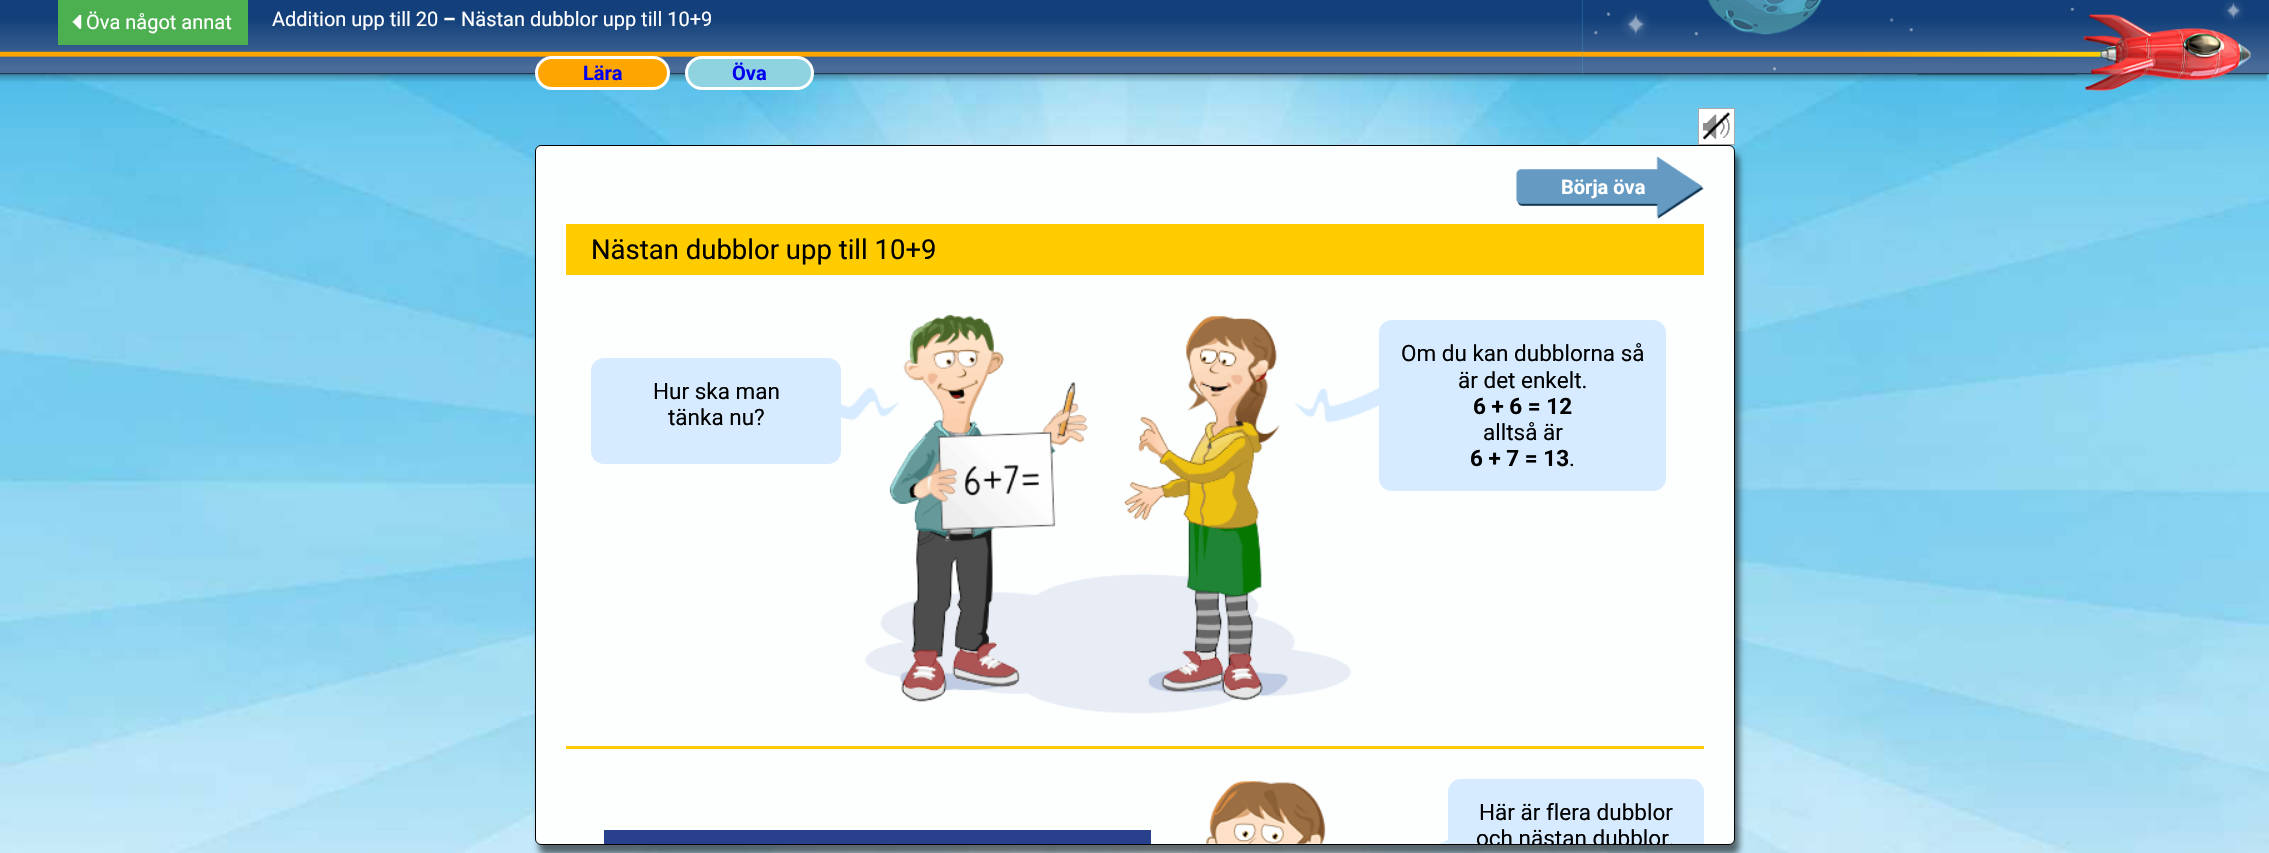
void draw(SkCanvas* canvas) {
	SkPaint paint;
	paint.setAntiAlias(true);
	auto svgPath = [&](const char* data, bool evenOdd = false) {
		SkPath result = *SkParsePath::FromSVGString(data);
		if (evenOdd) result.setFillType(SkPathFillType::kEvenOdd);
		return result;
	};
	canvas->clear(0xffffffff);
	canvas->drawImageRect(SkImages::DeferredFromEncodedData(SkData::MakeFromFileName("img1.png")), SkRect::MakeXYWH(0, 0, 2269, 853), SkSamplingOptions());
	canvas->drawImageRect(SkImages::DeferredFromEncodedData(SkData::MakeFromFileName("img2.png")), SkRect::MakeXYWH(0, 0, 1583, 82), SkSamplingOptions());
	canvas->drawImageRect(SkImages::DeferredFromEncodedData(SkData::MakeFromFileName("img3.png")), SkRect::MakeXYWH(1582, 0, 687, 91), SkSamplingOptions());
	paint.setColor(0xff4caf50);
	canvas->drawRect(SkRect::MakeXYWH(58, 0, 190, 45), paint);
	canvas->drawImageRect(SkImages::DeferredFromEncodedData(SkData::MakeFromFileName("img4.png")), SkRect::MakeXYWH(72, 15, 10, 14), SkSamplingOptions());
	SkFont f1(fontMgr->matchFamilyStyle("Roboto", SkFontStyle::Normal()), 20);
	f1.setSubpixel(true);
	paint.setColor(0xffffffff);
	canvas->drawString("Öva något annat", 86, 29, f1, paint);
	canvas->drawString("Addition upp till 20", 272, 26, f1, paint);
	SkFont f2(fontMgr->matchFamilyStyle("Roboto", SkFontStyle::Bold()), 20);
	f2.setSubpixel(true);
	canvas->drawString("–", 443, 26, f2, paint);
	canvas->drawString("Nästan dubblor upp till 10+9", 461, 26, f1, paint);
	paint.setColor(0xffffa500);
	canvas->drawRoundRect(SkRect::MakeXYWH(536.5, 57.5, 132, 31), 15.5, 15.5, paint);
	paint.setStroke(true);
	paint.setStrokeWidth(3);
	paint.setColor(0xffffffff);
	canvas->drawRoundRect(SkRect::MakeXYWH(536.5, 57.5, 132, 31), 15.5, 15.5, paint);
	paint.setStroke(false);
	paint.setColor(0xff0000ee);
	canvas->drawString("Lära", 583, 80, f2, paint);
	paint.setColor(0xff8fd3e0);
	canvas->drawRoundRect(SkRect::MakeXYWH(686.5, 57.5, 126, 31), 15.5, 15.5, paint);
	paint.setStroke(true);
	paint.setColor(0xffffffff);
	canvas->drawRoundRect(SkRect::MakeXYWH(686.5, 57.5, 126, 31), 15.5, 15.5, paint);
	paint.setStroke(false);
	paint.setColor(0xff0000ee);
	canvas->drawString("Öva", 732, 80, f2, paint);
	paint.setColor(0xffffffff);
	canvas->drawRect(SkRect::MakeXYWH(1699, 109, 35, 35), paint);
	canvas->drawImageRect(SkImages::DeferredFromEncodedData(SkData::MakeFromFileName("img5.png")), SkRect::MakeXYWH(1703, 112, 28, 28), SkSamplingOptions());
	paint.setStroke(true);
	paint.setStrokeWidth(1);
	paint.setColor(0xffaaaaaa);
	canvas->drawRect(SkRect::MakeXYWH(1698.5, 108.5, 36, 36), paint);
	paint.setStroke(false);
	paint.setColor(0x91000000);
	paint.setMaskFilter(SkMaskFilter::MakeBlur(kNormal_SkBlurStyle, 3));
	canvas->drawRoundRect(SkRect::MakeXYWH(539, 154, 1200, 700), 6, 6, paint);
	paint.setMaskFilter(nullptr);
	paint.setColor(0xfffcfffe);
	canvas->drawRoundRect(SkRect::MakeXYWH(535.5, 145.5, 1199, 699), 5.5, 5.5, paint);
	paint.setStroke(true);
	paint.setColor(0xff000000);
	canvas->drawRoundRect(SkRect::MakeXYWH(535.5, 145.5, 1199, 699), 5.5, 5.5, paint);
	canvas->drawImageRect(SkImages::DeferredFromEncodedData(SkData::MakeFromFileName("img6.png")), SkRect::MakeXYWH(1516, 156, 188, 63), SkSamplingOptions());
	paint.setStroke(false);
	paint.setColor(0xffffffff);
	canvas->drawString("Börja öva", 1561, 194, f2, paint);
	paint.setColor(0xffffcc00);
	canvas->drawRect(SkRect::MakeXYWH(566, 224, 1138, 51), paint);
	SkFont f3(fontMgr->matchFamilyStyle("Roboto", SkFontStyle::Normal()), 27.5);
	f3.setSubpixel(true);
	paint.setColor(0xff000000);
	canvas->drawString("Nästan dubblor upp till 10+9", 591, 259, f3, paint);
	canvas->drawImageRect(SkImages::DeferredFromEncodedData(SkData::MakeFromFileName("img7.png")), SkRect::MakeXYWH(804, 314, 583, 400), SkSamplingOptions());
	paint.setColor(0xffd6ebff);
	canvas->drawRoundRect(SkRect::MakeXYWH(591, 358, 250, 106), 13, 13, paint);
	SkFont f4(fontMgr->matchFamilyStyle("Roboto", SkFontStyle::Normal()), 22.5);
	f4.setSubpixel(true);
	paint.setColor(0xff000000);
	canvas->drawString("Hur ska man", 653, 399, f4, paint);
	canvas->drawString("tänka nu?", 668, 425, f4, paint);
	paint.setColor(0xffd6ebff);
	canvas->drawRoundRect(SkRect::MakeXYWH(1379, 320, 287, 171), 13, 13, paint);
	paint.setColor(0xff000000);
	canvas->drawString("Om du kan dubblorna så", 1401, 361, f4, paint);
	canvas->drawString("är det enkelt.", 1458, 388, f4, paint);
	SkFont f5(fontMgr->matchFamilyStyle("Roboto", SkFontStyle::Bold()), 22.5);
	f5.setSubpixel(true);
	canvas->drawString("6 + 6 = 12", 1473, 414, f5, paint);
	canvas->drawString("alltså är", 1483, 440, f4, paint);
	canvas->drawString("6 + 7 = 13", 1470, 466, f5, paint);
	canvas->drawString(".", 1569, 466, f4, paint);
	paint.setColor(0xffffcc00);
	canvas->drawRect(SkRect::MakeXYWH(566, 746, 1138, 3), paint);
	paint.setColor(0xff29418c);
	canvas->drawRect(SkRect::MakeXYWH(604, 830, 547, 14), paint);
	canvas->drawImageRect(SkImages::DeferredFromEncodedData(SkData::MakeFromFileName("img8.png")), SkRect::MakeXYWH(1206, 781, 242, 63), SkSamplingOptions());
	paint.setColor(0xffd6ebff);
	canvas->drawPath(svgPath("M1461 779H1691C1698 779 1704 785 1704 792V844H1448V792C1448 785 1454 779 1461 779Z"), paint);
	paint.setColor(0xff000000);
	canvas->drawString("Här är flera dubblor", 1479, 820, f4, paint);
	canvas->save();
	canvas->clipPath(svgPath("M541 146H1729C1732 146 1734 148 1734 151V839C1734 842 1732 844 1729 844H541C538 844 536 842 536 839V151C536 148 538 146 541 146Z"), true);
	canvas->drawString("och nästan dubblor.", 1476, 846, f4, paint);
	canvas->restore();
}
